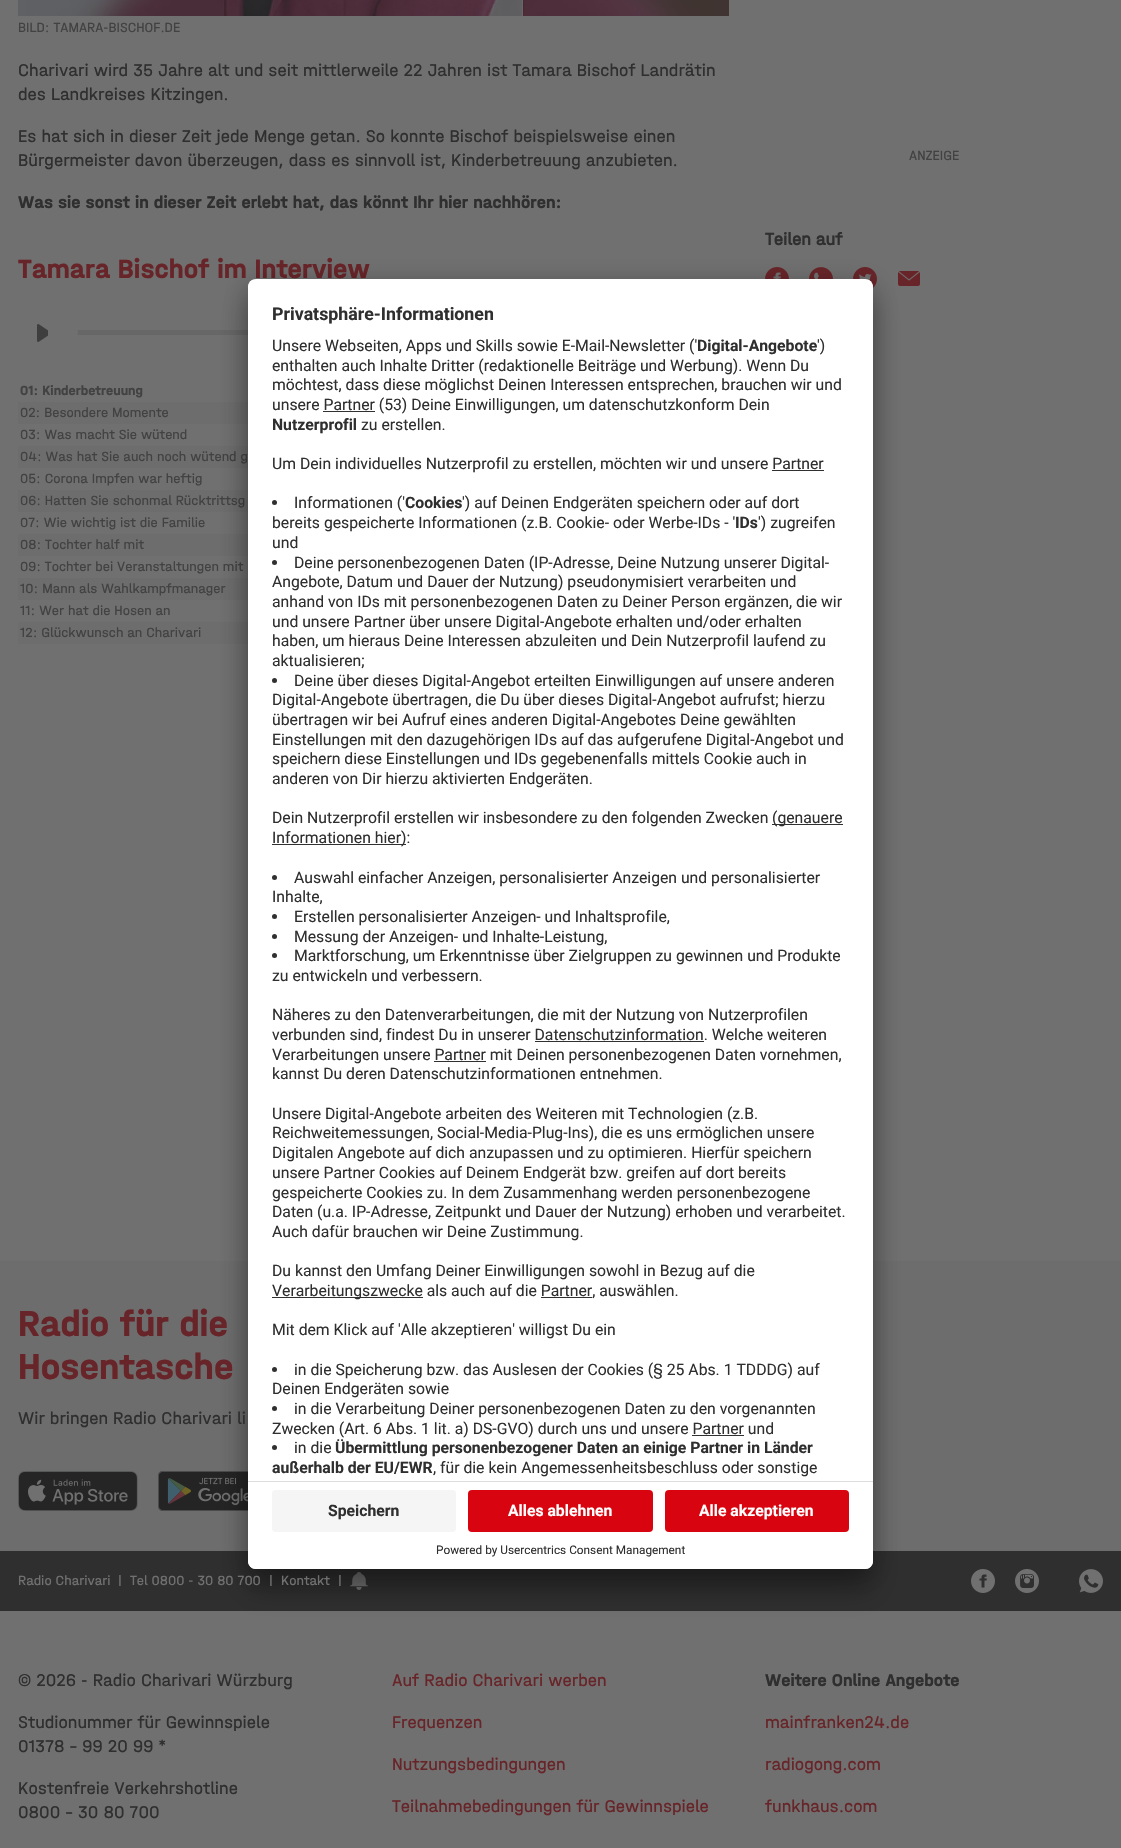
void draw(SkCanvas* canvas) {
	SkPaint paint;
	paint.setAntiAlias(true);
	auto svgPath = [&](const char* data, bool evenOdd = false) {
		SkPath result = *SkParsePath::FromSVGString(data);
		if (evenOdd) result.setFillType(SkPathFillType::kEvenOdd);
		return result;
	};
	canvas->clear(0xff707070);
	canvas->drawImageRect(SkImages::DeferredFromEncodedData(SkData::MakeFromFileName("img1.png")), SkRect::MakeXYWH(18, 0, 711, 16), SkSamplingOptions());
	SkFont f1(fontMgr->matchFamilyStyle("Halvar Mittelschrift", SkFontStyle::Normal()), 14);
	f1.setSubpixel(true);
	paint.setColor(0xff424242);
	canvas->drawString("BILD: TAMARA-BISCHOF.DE", 18, 32, f1, paint);
	SkFont f2(fontMgr->matchFamilyStyle("Halvar Mittelschrift", SkFontStyle::Normal()), 18);
	f2.setSubpixel(true);
	paint.setColor(0xff2f2f2f);
	canvas->drawString("Charivari wird 35 Jahre alt und seit mittlerweile 22 Jahren ist Tamara Bischof Landrätin", 18, 76, f2, paint);
	canvas->drawString("des Landkreises Kitzingen.", 18, 100, f2, paint);
	canvas->drawString("Es hat sich in dieser Zeit jede Menge getan. So konnte Bischof beispielsweise einen", 18, 142, f2, paint);
	canvas->drawString("Bürgermeister davon überzeugen, dass es sinnvoll ist, Kinderbetreuung anzubieten.", 18, 166, f2, paint);
	SkFont f3(fontMgr->matchFamilyStyle("Halvar Mittelschrift", SkFontStyle::Bold()), 18);
	f3.setSubpixel(true);
	canvas->drawString("Was sie sonst in dieser Zeit erlebt hat, das könnt Ihr hier nachhören:", 18, 208, f3, paint);
	SkFont f4(fontMgr->matchFamilyStyle("Halvar Mittelschrift", SkFontStyle::Bold()), 28);
	f4.setSubpixel(true);
	paint.setColor(0xff682529);
	canvas->drawString("Tamara Bischof im Interview", 18, 278, f4, paint);
	canvas->drawImageRect(SkImages::DeferredFromEncodedData(SkData::MakeFromFileName("img2.png")), SkRect::MakeXYWH(37, 324, 11, 18), SkSamplingOptions());
	paint.setColor(0x99606060);
	canvas->drawRoundRect(SkRect::MakeXYWH(65, 330, 494, 5), 2.5, 2.5, paint);
	paint.setColor(0xff707070);
	canvas->drawCircle(71.5, 332.5, 6.5, paint);
	SkFont f5(fontMgr->matchFamilyStyle("Halvar Mittelschrift", SkFontStyle::Bold()), 14);
	f5.setSubpixel(true);
	paint.setColor(0xff424242);
	canvas->drawString("01: Kinderbetreuung", 20, 395, f5, paint);
	paint.setColor(0xff6d6d6e);
	canvas->drawRect(SkRect::MakeXYWH(18, 402, 230, 22), paint);
	paint.setColor(0xff424242);
	canvas->drawString("02: Besondere Momente", 20, 417, f1, paint);
	canvas->drawString("03: Was macht Sie wütend", 20, 439, f1, paint);
	paint.setColor(0xff6d6d6e);
	canvas->drawRect(SkRect::MakeXYWH(18, 446, 230, 22), paint);
	paint.setColor(0xff424242);
	canvas->drawString("04: Was hat Sie auch noch wütend g", 20, 461, f1, paint);
	canvas->drawString("05: Corona Impfen war heftig", 20, 483, f1, paint);
	paint.setColor(0xff6d6d6e);
	canvas->drawRect(SkRect::MakeXYWH(18, 490, 230, 22), paint);
	paint.setColor(0xff424242);
	canvas->drawString("06: Hatten Sie schonmal Rücktrittsg", 20, 505, f1, paint);
	canvas->drawString("07: Wie wichtig ist die Familie", 20, 527, f1, paint);
	paint.setColor(0xff6d6d6e);
	canvas->drawRect(SkRect::MakeXYWH(18, 534, 230, 22), paint);
	paint.setColor(0xff424242);
	canvas->drawString("08: Tochter half mit", 20, 549, f1, paint);
	canvas->drawString("09: Tochter bei Veranstaltungen mit", 20, 571, f1, paint);
	paint.setColor(0xff6d6d6e);
	canvas->drawRect(SkRect::MakeXYWH(18, 578, 230, 22), paint);
	paint.setColor(0xff424242);
	canvas->drawString("10: Mann als Wahlkampfmanager", 20, 593, f1, paint);
	canvas->drawString("11: Wer hat die Hosen an", 20, 615, f1, paint);
	paint.setColor(0xff6d6d6e);
	canvas->drawRect(SkRect::MakeXYWH(18, 622, 230, 22), paint);
	paint.setColor(0xff424242);
	canvas->drawString("12: Glückwunsch an Charivari", 20, 637, f1, paint);
	canvas->drawString("ANZEIGE", 909, 160, f1, paint);
	SkFont f6(fontMgr->matchFamilyStyle("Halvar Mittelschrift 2", SkFontStyle::Bold()), 18);
	f6.setSubpixel(true);
	paint.setColor(0xff2f2f2f);
	canvas->drawString("Teilen auf", 765, 245, f6, paint);
	canvas->drawImageRect(SkImages::DeferredFromEncodedData(SkData::MakeFromFileName("img3.png")), SkRect::MakeXYWH(765, 267, 24, 12), SkSamplingOptions());
	canvas->drawImageRect(SkImages::DeferredFromEncodedData(SkData::MakeFromFileName("img4.png")), SkRect::MakeXYWH(809, 267, 24, 12), SkSamplingOptions());
	canvas->drawImageRect(SkImages::DeferredFromEncodedData(SkData::MakeFromFileName("img5.png")), SkRect::MakeXYWH(853, 267, 24, 21), SkSamplingOptions());
	canvas->drawImageRect(SkImages::DeferredFromEncodedData(SkData::MakeFromFileName("img6.png")), SkRect::MakeXYWH(898, 271, 22, 15), SkSamplingOptions());
	paint.setColor(0xff6d6d6e);
	canvas->drawRect(SkRect::MakeXYWH(0, 1261, 1121, 290), paint);
	canvas->drawImageRect(SkImages::DeferredFromEncodedData(SkData::MakeFromFileName("img8.png")), SkRect::MakeXYWH(158, 1471, 90, 40), SkSamplingOptions());
	paint.setColor(0xff2f2f2f);
	canvas->drawRect(SkRect::MakeXYWH(0, 1551, 1121, 60), paint);
	canvas->drawImageRect(SkImages::DeferredFromEncodedData(SkData::MakeFromFileName("img9.png")), SkRect::MakeXYWH(350, 1572, 18, 18), SkSamplingOptions());
	paint.setColor(0x4d000000);
	paint.setMaskFilter(SkMaskFilter::MakeBlur(kNormal_SkBlurStyle, 14));
	canvas->drawRoundRect(SkRect::MakeXYWH(248, 299, 625, 1290), 8, 8, paint);
	paint.setMaskFilter(nullptr);
	paint.setColor(0x38000000);
	paint.setMaskFilter(SkMaskFilter::MakeBlur(kNormal_SkBlurStyle, 13));
	canvas->drawRoundRect(SkRect::MakeXYWH(248, 284, 625, 1290), 8, 8, paint);
	paint.setMaskFilter(nullptr);
	paint.setColor(0xffffffff);
	canvas->drawRoundRect(SkRect::MakeXYWH(248, 279, 625, 1290), 8, 8, paint);
	canvas->save();
	canvas->clipPath(svgPath("M256 279H865C869.5 279 873 282.5 873 287V1561C873 1565.5 869.5 1569 865 1569H256C251.5 1569 248 1565.5 248 1561V287C248 282.5 251.5 279 256 279Z"), true);
	canvas->clipPath(svgPath("M256 279H865C869.5 279 873 282.5 873 287V1481H248V287C248 282.5 251.5 279 256 279Z"), true);
	canvas->drawRect(SkRect::MakeXYWH(248, 280, 625, 1201), paint);
	canvas->restore();
	SkFont f7(fontMgr->matchFamilyStyle("Roboto", SkFontStyle::Bold()), 17.75);
	f7.setSubpixel(true);
	paint.setColor(0xff2f2f2f);
	canvas->drawString("Privatsphäre-Informationen", 272, 320, f7, paint);
	SkFont f8(fontMgr->matchFamilyStyle("Roboto", SkFontStyle::Normal()), 15.75);
	f8.setSubpixel(true);
	canvas->drawString("Unsere Webseiten, Apps und Skills sowie E-Mail-Newsletter ('", 272, 351, f8, paint);
	SkFont f9(fontMgr->matchFamilyStyle("Roboto", SkFontStyle::Bold()), 15.75);
	f9.setSubpixel(true);
	canvas->drawString("Digital-Angebote", 697, 351, f9, paint);
	canvas->drawString("')", 817, 351, f8, paint);
	canvas->drawString("enthalten auch Inhalte Dritter (redaktionelle Beiträge und Werbung). Wenn Du", 272, 371, f8, paint);
	canvas->drawString("möchtest, dass diese möglichst Deinen Interessen entsprechen, brauchen wir und", 272, 390, f8, paint);
	canvas->drawString("unsere Partner (53) Deine Einwilligungen, um datenschutzkonform Dein", 272, 410, f8, paint);
	paint.setColor(0xff303030);
	canvas->drawRect(SkRect::MakeXYWH(323, 411, 52, 1), paint);
	paint.setColor(0xff2f2f2f);
	canvas->drawString("Nutzerprofil", 272, 430, f9, paint);
	canvas->drawString("zu erstellen.", 361, 430, f8, paint);
	canvas->drawString("Um Dein individuelles Nutzerprofil zu erstellen, möchten wir und unsere Partner", 272, 469, f8, paint);
	paint.setColor(0xff303030);
	canvas->drawRect(SkRect::MakeXYWH(772, 470, 52, 1), paint);
	canvas->drawCircle(274.5, 502.5, 2.5, paint);
	paint.setColor(0xff2f2f2f);
	canvas->drawString("Informationen ('", 294, 508, f8, paint);
	canvas->drawString("Cookies", 405, 508, f9, paint);
	canvas->drawString("') auf Deinen Endgeräten speichern oder auf dort", 462, 508, f8, paint);
	canvas->drawString("bereits gespeicherte Informationen (z.B. Cookie- oder Werbe-IDs - '", 272, 528, f8, paint);
	canvas->drawString("IDs", 735, 528, f9, paint);
	canvas->drawString("') zugreifen", 758, 528, f8, paint);
	canvas->drawString("und", 272, 548, f8, paint);
	paint.setColor(0xff303030);
	canvas->drawCircle(274.5, 562.5, 2.5, paint);
	paint.setColor(0xff2f2f2f);
	canvas->drawString("Deine personenbezogenen Daten (IP-Adresse, Deine Nutzung unserer Digital-", 294, 568, f8, paint);
	canvas->drawString("Angebote, Datum und Dauer der Nutzung) pseudonymisiert verarbeiten und", 272, 587, f8, paint);
	canvas->drawString("anhand von IDs mit personenbezogenen Daten zu Deiner Person ergänzen, die wir", 272, 607, f8, paint);
	canvas->drawString("und unsere Partner über unsere Digital-Angebote erhalten und/oder erhalten", 272, 627, f8, paint);
	canvas->drawString("haben, um hieraus Deine Interessen abzuleiten und Dein Nutzerprofil laufend zu", 272, 646, f8, paint);
	canvas->drawString("aktualisieren;", 272, 666, f8, paint);
	paint.setColor(0xff303030);
	canvas->drawCircle(274.5, 680.5, 2.5, paint);
	paint.setColor(0xff2f2f2f);
	canvas->drawString("Deine über dieses Digital-Angebot erteilten Einwilligungen auf unsere anderen", 294, 686, f8, paint);
	canvas->drawString("Digital-Angebote übertragen, die Du über dieses Digital-Angebot aufrufst; hierzu", 272, 705, f8, paint);
	canvas->drawString("übertragen wir bei Aufruf eines anderen Digital-Angebotes Deine gewählten", 272, 725, f8, paint);
	canvas->drawString("Einstellungen mit den dazugehörigen IDs auf das aufgerufene Digital-Angebot und", 272, 745, f8, paint);
	canvas->drawString("speichern diese Einstellungen und IDs gegebenenfalls mittels Cookie auch in", 272, 764, f8, paint);
	canvas->drawString("anderen von Dir hierzu aktivierten Endgeräten.", 272, 784, f8, paint);
	canvas->drawString("Dein Nutzerprofil erstellen wir insbesondere zu den folgenden Zwecken", 272, 823, f8, paint);
	paint.setColor(0xff303030);
	canvas->drawRect(SkRect::MakeXYWH(772, 824, 71, 1), paint);
	paint.setColor(0xff2f2f2f);
	canvas->drawString("(genauere", 772, 823, f8, paint);
	paint.setColor(0xff303030);
	canvas->drawRect(SkRect::MakeXYWH(272, 844, 134, 1), paint);
	paint.setColor(0xff2f2f2f);
	canvas->drawString("Informationen hier):", 272, 843, f8, paint);
	paint.setColor(0xff303030);
	canvas->drawCircle(274.5, 877.5, 2.5, paint);
	paint.setColor(0xff2f2f2f);
	canvas->drawString("Auswahl einfacher Anzeigen, personalisierter Anzeigen und personalisierter", 294, 883, f8, paint);
	canvas->drawString("Inhalte,", 272, 902, f8, paint);
	paint.setColor(0xff303030);
	canvas->drawCircle(274.5, 916.5, 2.5, paint);
	paint.setColor(0xff2f2f2f);
	canvas->drawString("Erstellen personalisierter Anzeigen- und Inhaltsprofile,", 294, 922, f8, paint);
	paint.setColor(0xff303030);
	canvas->drawCircle(274.5, 936.5, 2.5, paint);
	paint.setColor(0xff2f2f2f);
	canvas->drawString("Messung der Anzeigen- und Inhalte-Leistung,", 294, 942, f8, paint);
	paint.setColor(0xff303030);
	canvas->drawCircle(274.5, 955.5, 2.5, paint);
	paint.setColor(0xff2f2f2f);
	canvas->drawString("Marktforschung, um Erkenntnisse über Zielgruppen zu gewinnen und Produkte", 294, 961, f8, paint);
	canvas->drawString("zu entwickeln und verbessern.", 272, 981, f8, paint);
	canvas->drawString("Näheres zu den Datenverarbeitungen, die mit der Nutzung von Nutzerprofilen", 272, 1020, f8, paint);
	canvas->drawString("verbunden sind, findest Du in unserer Datenschutzinformation. Welche weiteren", 272, 1040, f8, paint);
	paint.setColor(0xff303030);
	canvas->drawRect(SkRect::MakeXYWH(535, 1041, 169, 1), paint);
	paint.setColor(0xff2f2f2f);
	canvas->drawString("Verarbeitungen unsere Partner mit Deinen personenbezogenen Daten vornehmen,", 272, 1060, f8, paint);
	paint.setColor(0xff303030);
	canvas->drawRect(SkRect::MakeXYWH(434, 1061, 52, 1), paint);
	paint.setColor(0xff2f2f2f);
	canvas->drawString("kannst Du deren Datenschutzinformationen entnehmen.", 272, 1079, f8, paint);
	canvas->drawString("Unsere Digital-Angebote arbeiten des Weiteren mit Technologien (z.B.", 272, 1119, f8, paint);
	canvas->drawString("Reichweitemessungen, Social-Media-Plug-Ins), die es uns ermöglichen unsere", 272, 1138, f8, paint);
	canvas->drawString("Digitalen Angebote auf dich anzupassen und zu optimieren. Hierfür speichern", 272, 1158, f8, paint);
	canvas->drawString("unsere Partner Cookies auf Deinem Endgerät bzw. greifen auf dort bereits", 272, 1178, f8, paint);
	canvas->drawString("gespeicherte Cookies zu. In dem Zusammenhang werden personenbezogene", 272, 1198, f8, paint);
	canvas->drawString("Daten (u.a. IP-Adresse, Zeitpunkt und Dauer der Nutzung) erhoben und verarbeitet.", 272, 1217, f8, paint);
	canvas->drawString("Auch dafür brauchen wir Deine Zustimmung.", 272, 1237, f8, paint);
	canvas->drawString("Du kannst den Umfang Deiner Einwilligungen sowohl in Bezug auf die", 272, 1276, f8, paint);
	paint.setColor(0xff303030);
	canvas->drawRect(SkRect::MakeXYWH(272, 1297, 151, 1), paint);
	paint.setColor(0xff2f2f2f);
	canvas->drawString("Verarbeitungszwecke als auch auf die Partner, auswählen.", 272, 1296, f8, paint);
	paint.setColor(0xff303030);
	canvas->drawRect(SkRect::MakeXYWH(541, 1297, 51, 1), paint);
	paint.setColor(0xff2f2f2f);
	canvas->drawString("Mit dem Klick auf 'Alle akzeptieren' willigst Du ein", 272, 1335, f8, paint);
	paint.setColor(0xff303030);
	canvas->drawCircle(274.5, 1369.5, 2.5, paint);
	paint.setColor(0xff2f2f2f);
	canvas->drawString("in die Speicherung bzw. das Auslesen der Cookies (§ 25 Abs. 1 TDDDG) auf", 294, 1375, f8, paint);
	canvas->drawString("Deinen Endgeräten sowie", 272, 1394, f8, paint);
	paint.setColor(0xff303030);
	canvas->drawCircle(274.5, 1408.5, 2.5, paint);
	paint.setColor(0xff2f2f2f);
	canvas->drawString("in die Verarbeitung Deiner personenbezogenen Daten zu den vorgenannten", 294, 1414, f8, paint);
	canvas->drawString("Zwecken (Art. 6 Abs. 1 lit. a) DS-GVO) durch uns und unsere Partner und", 272, 1434, f8, paint);
	paint.setColor(0xff303030);
	canvas->drawRect(SkRect::MakeXYWH(692, 1435, 52, 1), paint);
	canvas->drawCircle(274.5, 1447.5, 2.5, paint);
	paint.setColor(0xff2f2f2f);
	canvas->drawString("in die", 294, 1453, f8, paint);
	canvas->drawString("Übermittlung personenbezogener Daten an einige Partner in Länder", 335, 1453, f9, paint);
	canvas->drawString("außerhalb der EU/EWR", 272, 1473, f9, paint);
	canvas->drawString(", für die kein Angemessenheitsbeschluss oder sonstige", 433, 1473, f8, paint);
	paint.setColor(0xffffffff);
	canvas->drawPath(svgPath("M248 1481H873V1561C873 1565.5 869.5 1569 865 1569H256C251.5 1569 248 1565.5 248 1561Z"), paint);
	paint.setColor(0xffdddddd);
	canvas->drawRect(SkRect::MakeXYWH(248, 1481, 625, 1), paint);
	paint.setColor(0xfff5f5f5);
	canvas->drawRoundRect(SkRect::MakeXYWH(272, 1490, 184, 42), 4, 4, paint);
	paint.setColor(0xff2f2f2f);
	canvas->drawString("Speichern", 328, 1516, f9, paint);
	paint.setColor(0xffd80510);
	canvas->drawRoundRect(SkRect::MakeXYWH(468, 1490, 185, 42), 4, 4, paint);
	paint.setColor(0xffffffff);
	canvas->drawString("Alles ablehnen", 508, 1516, f9, paint);
	paint.setColor(0xffd80510);
	canvas->drawRoundRect(SkRect::MakeXYWH(665, 1490, 184, 42), 4, 4, paint);
	paint.setColor(0xffffffff);
	canvas->drawString("Alle akzeptieren", 699, 1516, f9, paint);
	SkFont f10(fontMgr->matchFamilyStyle("Roboto", SkFontStyle::Normal()), 11.8);
	f10.setSubpixel(true);
	paint.setColor(0xff2f2f2f);
	canvas->drawString("Powered by Usercentrics Consent Management", 436, 1554, f10, paint);
	SkFont f11(fontMgr->matchFamilyStyle("Halvar Mittelschrift", SkFontStyle::Bold()), 38);
	f11.setSubpixel(true);
	paint.setColor(0xff682529);
	canvas->drawString("Radio für die", 18, 1336, f11, paint);
	canvas->drawString("Hosentasche", 18, 1379, f11, paint);
	paint.setColor(0xff2f2f2f);
	canvas->drawString("Wir bringen Radio Charivari li", 18, 1424, f2, paint);
	canvas->drawImageRect(SkImages::DeferredFromEncodedData(SkData::MakeFromFileName("img7.png")), SkRect::MakeXYWH(18, 1471, 120, 40), SkSamplingOptions());
	paint.setColor(0xff707070);
	canvas->drawString("Radio Charivari", 18, 1585, f1, paint);
	canvas->drawString("|", 118, 1585, f1, paint);
	canvas->drawString("Tel 0800 - 30 80 700", 130, 1585, f1, paint);
	canvas->drawString("|", 269, 1585, f1, paint);
	canvas->drawString("Kontakt", 281, 1585, f1, paint);
	canvas->drawString("|", 338, 1585, f1, paint);
	canvas->drawImageRect(SkImages::DeferredFromEncodedData(SkData::MakeFromFileName("img10.png")), SkRect::MakeXYWH(971, 1569, 24, 24), SkSamplingOptions());
	canvas->drawImageRect(SkImages::DeferredFromEncodedData(SkData::MakeFromFileName("img11.png")), SkRect::MakeXYWH(1015, 1569, 24, 24), SkSamplingOptions());
	canvas->drawImageRect(SkImages::DeferredFromEncodedData(SkData::MakeFromFileName("img12.png")), SkRect::MakeXYWH(1079, 1569, 24, 24), SkSamplingOptions());
	paint.setColor(0xff2f2f2f);
	canvas->drawString("© 2026 - Radio Charivari Würzburg", 18, 1686, f2, paint);
	canvas->drawString("Studionummer für Gewinnspiele", 18, 1728, f2, paint);
	canvas->drawString("01378 – 99 20 99 *", 18, 1752, f2, paint);
	canvas->drawString("Kostenfreie Verkehrshotline", 18, 1794, f2, paint);
	canvas->drawString("0800 – 30 80 700", 18, 1818, f2, paint);
	paint.setColor(0xff682529);
	canvas->drawString("Auf Radio Charivari werben", 392, 1686, f2, paint);
	canvas->drawString("Frequenzen", 392, 1728, f2, paint);
	canvas->drawString("Nutzungsbedingungen", 392, 1770, f2, paint);
	canvas->drawString("Teilnahmebedingungen für Gewinnspiele", 392, 1812, f2, paint);
	paint.setColor(0xff2f2f2f);
	canvas->drawString("Weitere Online Angebote", 765, 1686, f3, paint);
	paint.setColor(0xff682529);
	canvas->drawString("mainfranken24.de", 765, 1728, f2, paint);
	canvas->drawString("radiogong.com", 765, 1770, f2, paint);
	canvas->drawString("funkhaus.com", 765, 1812, f2, paint);
}
